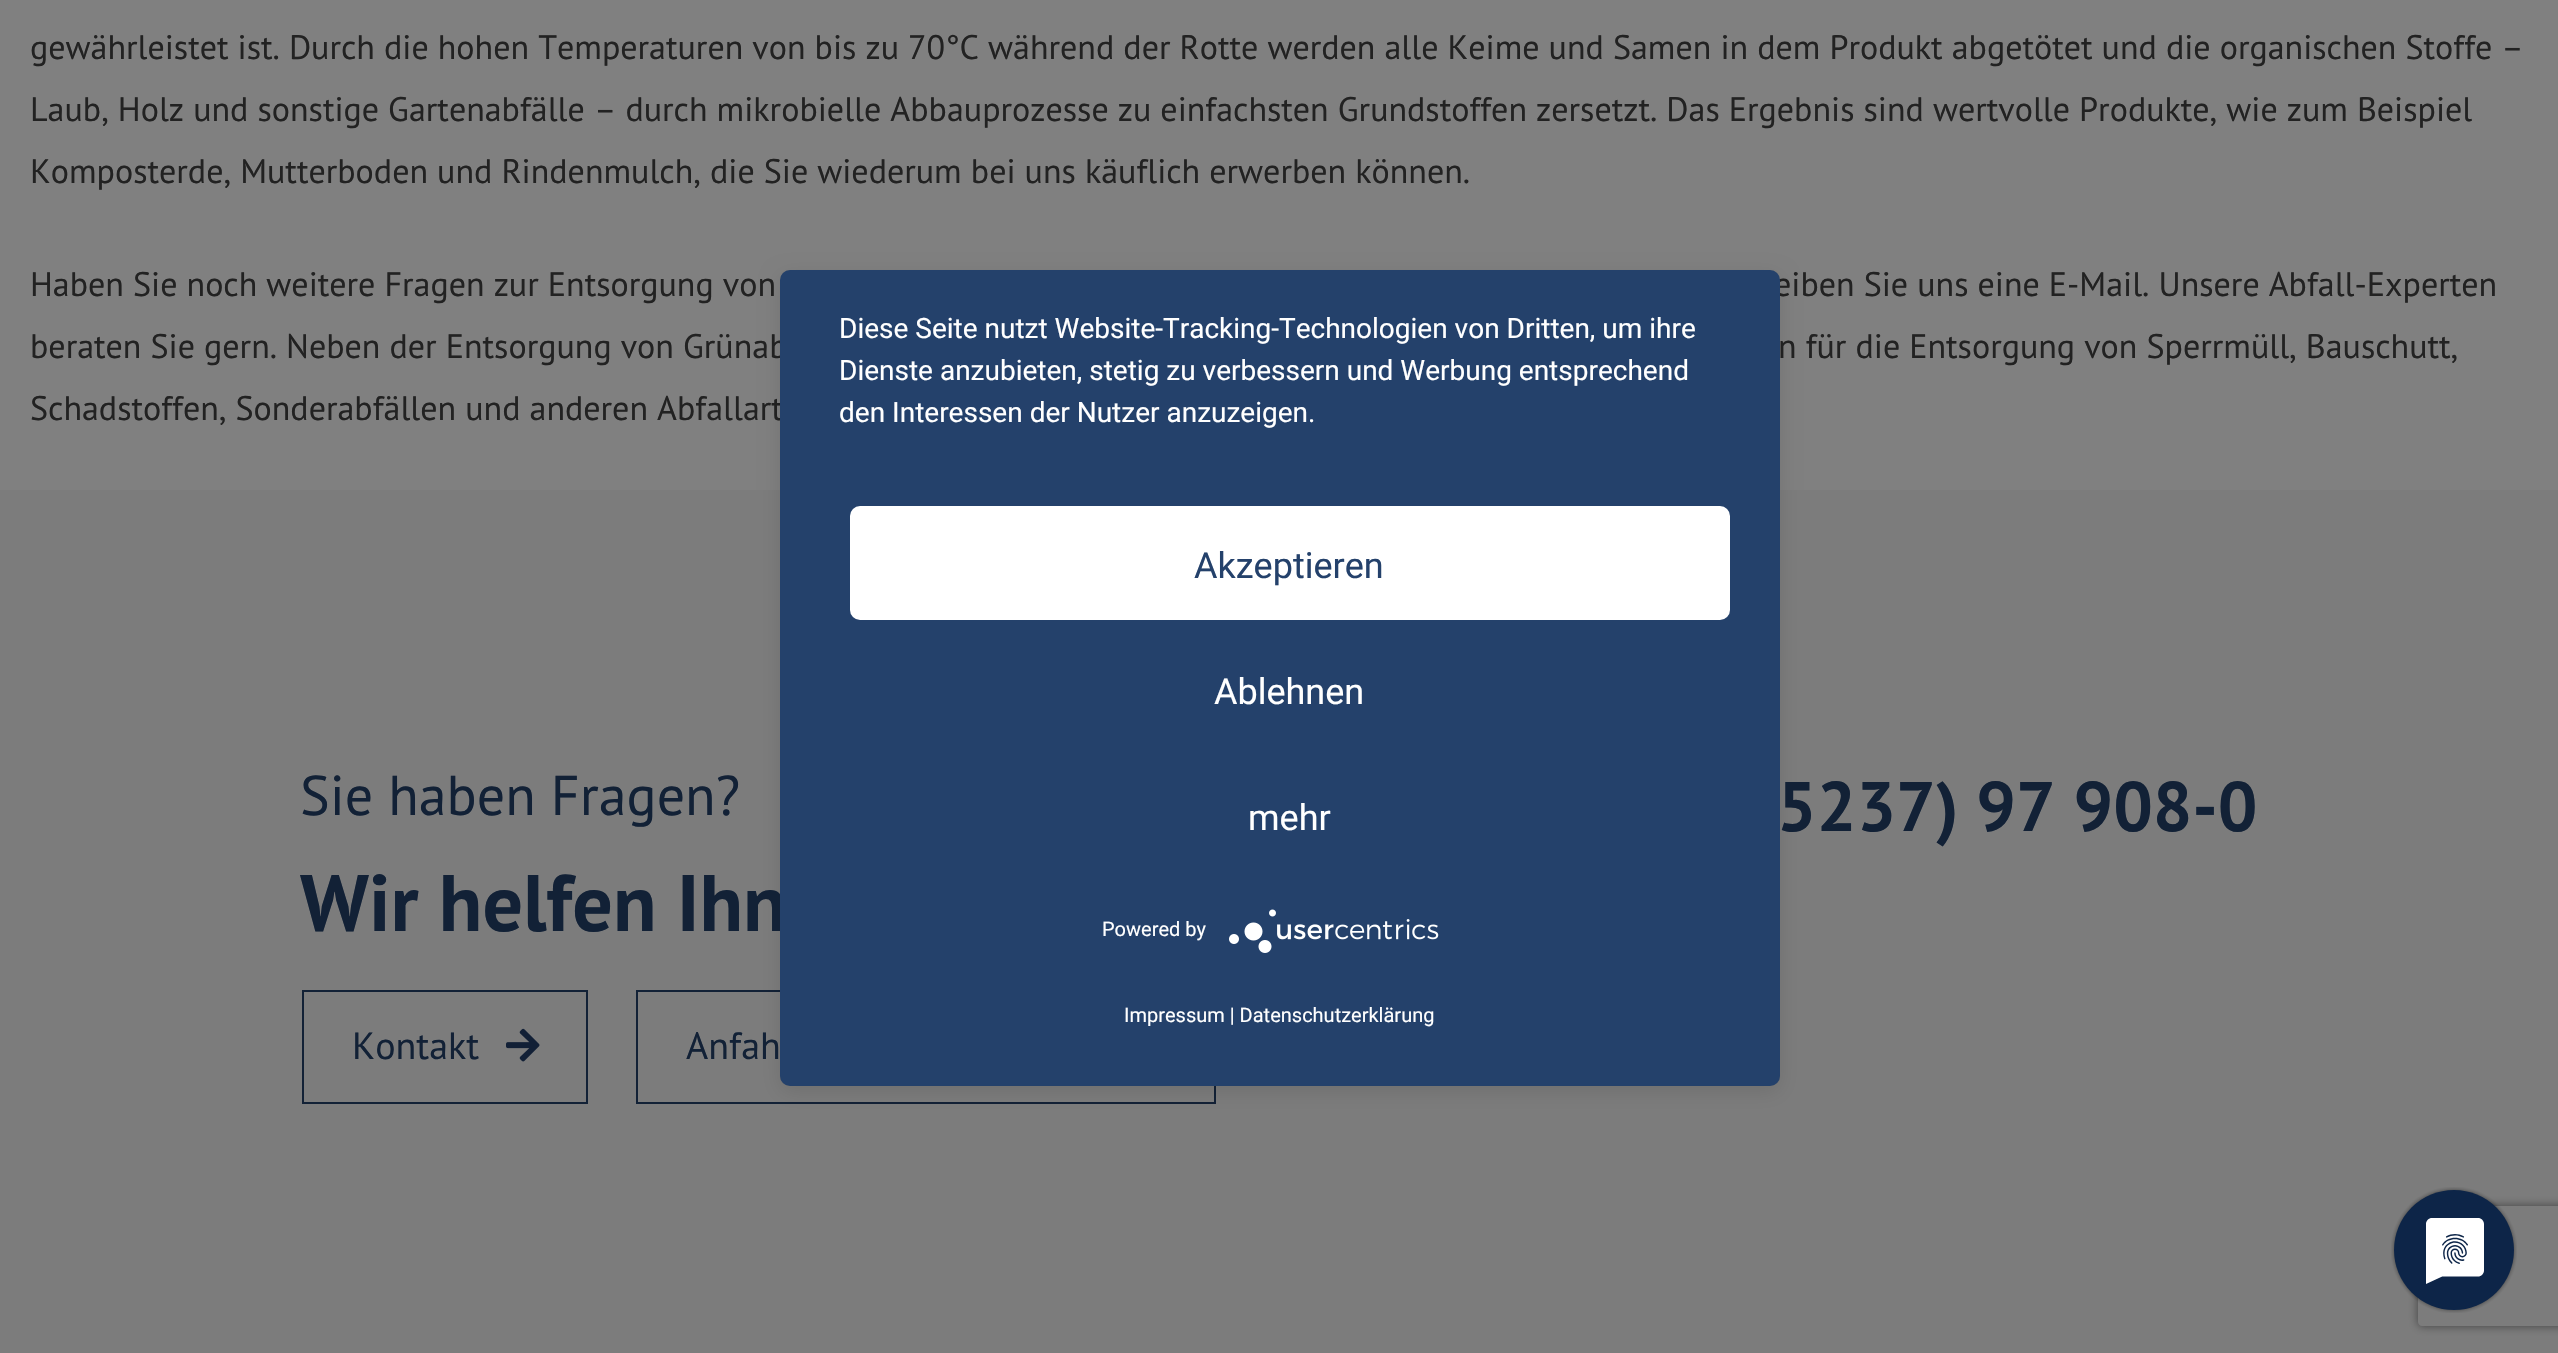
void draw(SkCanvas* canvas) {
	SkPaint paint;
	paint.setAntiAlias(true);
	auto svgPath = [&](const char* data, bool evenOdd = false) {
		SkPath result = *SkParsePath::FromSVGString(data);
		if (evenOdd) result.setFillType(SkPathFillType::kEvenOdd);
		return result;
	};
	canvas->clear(0xff808080);
	SkFont f1(fontMgr->matchFamilyStyle("PT Sans", SkFontStyle::Normal()), 34);
	f1.setSubpixel(true);
	paint.setColor(0xff222222);
	canvas->drawString("gewährleistet ist. Durch die hohen Temperaturen von bis zu 70°C während der Rotte werden alle Keime und Samen in dem Produkt abgetötet und die organischen Stoffe –", 30, 59, f1, paint);
	canvas->drawString("Laub, Holz und sonstige Gartenabfälle – durch mikrobielle Abbauprozesse zu einfachsten Grundstoffen zersetzt. Das Ergebnis sind wertvolle Produkte, wie zum Beispiel", 30, 121, f1, paint);
	canvas->drawString("Komposterde, Mutterboden und Rindenmulch, die Sie wiederum bei uns käuflich erwerben können.", 30, 183, f1, paint);
	canvas->drawString("Haben Sie noch weitere Fragen zur Entsorgung von", 30, 296, f1, paint);
	canvas->drawString("eiben Sie uns eine E-Mail. Unsere Abfall-Experten", 1774, 296, f1, paint);
	canvas->drawString("beraten Sie gern. Neben der Entsorgung von Grünab", 30, 358, f1, paint);
	canvas->drawString("n für die Entsorgung von Sperrmüll, Bauschutt,", 1778, 358, f1, paint);
	canvas->drawString("Schadstoffen, Sonderabfällen und anderen Abfallart", 30, 420, f1, paint);
	paint.setColor(0xff7c7c7c);
	canvas->drawRect(SkRect::MakeXYWH(0, 490, 2558, 863), paint);
	paint.setStroke(true);
	paint.setStrokeWidth(2);
	paint.setColor(0xff122136);
	canvas->drawRect(SkRect::MakeXYWH(637, 991, 578, 112), paint);
	paint.setStroke(false);
	paint.setColor(0x1a000000);
	paint.setMaskFilter(SkMaskFilter::MakeBlur(kNormal_SkBlurStyle, 10));
	canvas->drawRoundRect(SkRect::MakeXYWH(780, 276, 1000, 816), 10, 10, paint);
	paint.setMaskFilter(nullptr);
	canvas->save();
	canvas->clipPath(svgPath("M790 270H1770C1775.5 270 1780 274.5 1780 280V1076C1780 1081.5 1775.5 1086 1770 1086H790C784.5 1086 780 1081.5 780 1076V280C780 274.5 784.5 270 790 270Z"), true);
	paint.setColor(0x4d000000);
	paint.setMaskFilter(SkMaskFilter::MakeBlur(kNormal_SkBlurStyle, 36));
	canvas->drawRect(SkRect::MakeXYWH(780, 282, 1000, 816), paint);
	paint.setMaskFilter(nullptr);
	canvas->restore();
	SkFont f2(fontMgr->matchFamilyStyle("PT Sans", SkFontStyle::Bold()), 80);
	f2.setSubpixel(true);
	paint.setColor(0xff122136);
	canvas->drawString("Wir helfen Ihn", 300, 931, f2, paint);
	paint.setColor(0xff24416b);
	canvas->drawRoundRect(SkRect::MakeXYWH(780, 270, 1000, 816), 10, 10, paint);
	SkFont f3(fontMgr->matchFamilyStyle("Roboto", SkFontStyle::Normal()), 28);
	f3.setSubpixel(true);
	paint.setColor(0xffffffff);
	canvas->drawString("Diese Seite nutzt Website-Tracking-Technologien von Dritten, um ihre", 839, 338, f3, paint);
	canvas->drawString("Dienste anzubieten, stetig zu verbessern und Werbung entsprechend", 839, 380, f3, paint);
	canvas->drawString("den Interessen der Nutzer anzuzeigen.", 839, 422, f3, paint);
	canvas->drawRoundRect(SkRect::MakeXYWH(850, 506, 880, 114), 10, 10, paint);
	SkFont f4(fontMgr->matchFamilyStyle("Roboto", SkFontStyle::Normal()), 36);
	f4.setSubpixel(true);
	paint.setColor(0xff24416b);
	canvas->drawString("Akzeptieren", 1194, 578, f4, paint);
	paint.setColor(0xffffffff);
	canvas->drawString("Ablehnen", 1214, 704, f4, paint);
	canvas->drawString("mehr", 1248, 830, f4, paint);
	SkFont f5(fontMgr->matchFamilyStyle("Roboto", SkFontStyle::Normal()), 20);
	f5.setSubpixel(true);
	canvas->drawString("Powered by", 1102, 936, f5, paint);
	canvas->drawImageRect(SkImages::DeferredFromEncodedData(SkData::MakeFromFileName("img1.png")), SkRect::MakeXYWH(1229, 909, 210, 44), SkSamplingOptions());
	canvas->drawString("Impressum | Datenschutzerklärung", 1124, 1022, f5, paint);
	canvas->save();
	canvas->clipPath(svgPath("M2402 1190H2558V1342H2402ZM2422 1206H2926C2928 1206 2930 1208 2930 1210V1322C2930 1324 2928 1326 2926 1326H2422C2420 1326 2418 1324 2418 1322V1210C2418 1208 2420 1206 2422 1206Z", true), true);
	paint.setColor(0xff404040);
	paint.setMaskFilter(SkMaskFilter::MakeBlur(kNormal_SkBlurStyle, 5));
	canvas->drawRoundRect(SkRect::MakeXYWH(2418, 1206, 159, 120), 4, 4, paint);
	paint.setMaskFilter(nullptr);
	canvas->restore();
	canvas->drawImageRect(SkImages::DeferredFromEncodedData(SkData::MakeFromFileName("img2.png")), SkRect::MakeXYWH(2391, 1187, 126, 126), SkSamplingOptions());
	SkFont f6(fontMgr->matchFamilyStyle("PT Sans", SkFontStyle::Normal()), 56);
	f6.setSubpixel(true);
	paint.setColor(0xff122136);
	canvas->drawString("Sie haben Fragen?", 300, 815, f6, paint);
	paint.setStroke(true);
	canvas->drawRect(SkRect::MakeXYWH(303, 991, 284, 112), paint);
	SkFont f7(fontMgr->matchFamilyStyle("PT Sans", SkFontStyle::Normal()), 38);
	f7.setSubpixel(true);
	paint.setStroke(false);
	canvas->drawString("Kontakt", 352, 1059, f7, paint);
	canvas->drawImageRect(SkImages::DeferredFromEncodedData(SkData::MakeFromFileName("img3.png")), SkRect::MakeXYWH(506, 1028, 34, 34), SkSamplingOptions());
	canvas->drawString("Anfah", 686, 1059, f7, paint);
	SkFont f8(fontMgr->matchFamilyStyle("PT Sans", SkFontStyle::Bold()), 70);
	f8.setSubpixel(true);
	canvas->drawString("5237) 97 908-0", 1777, 831, f8, paint);
}
